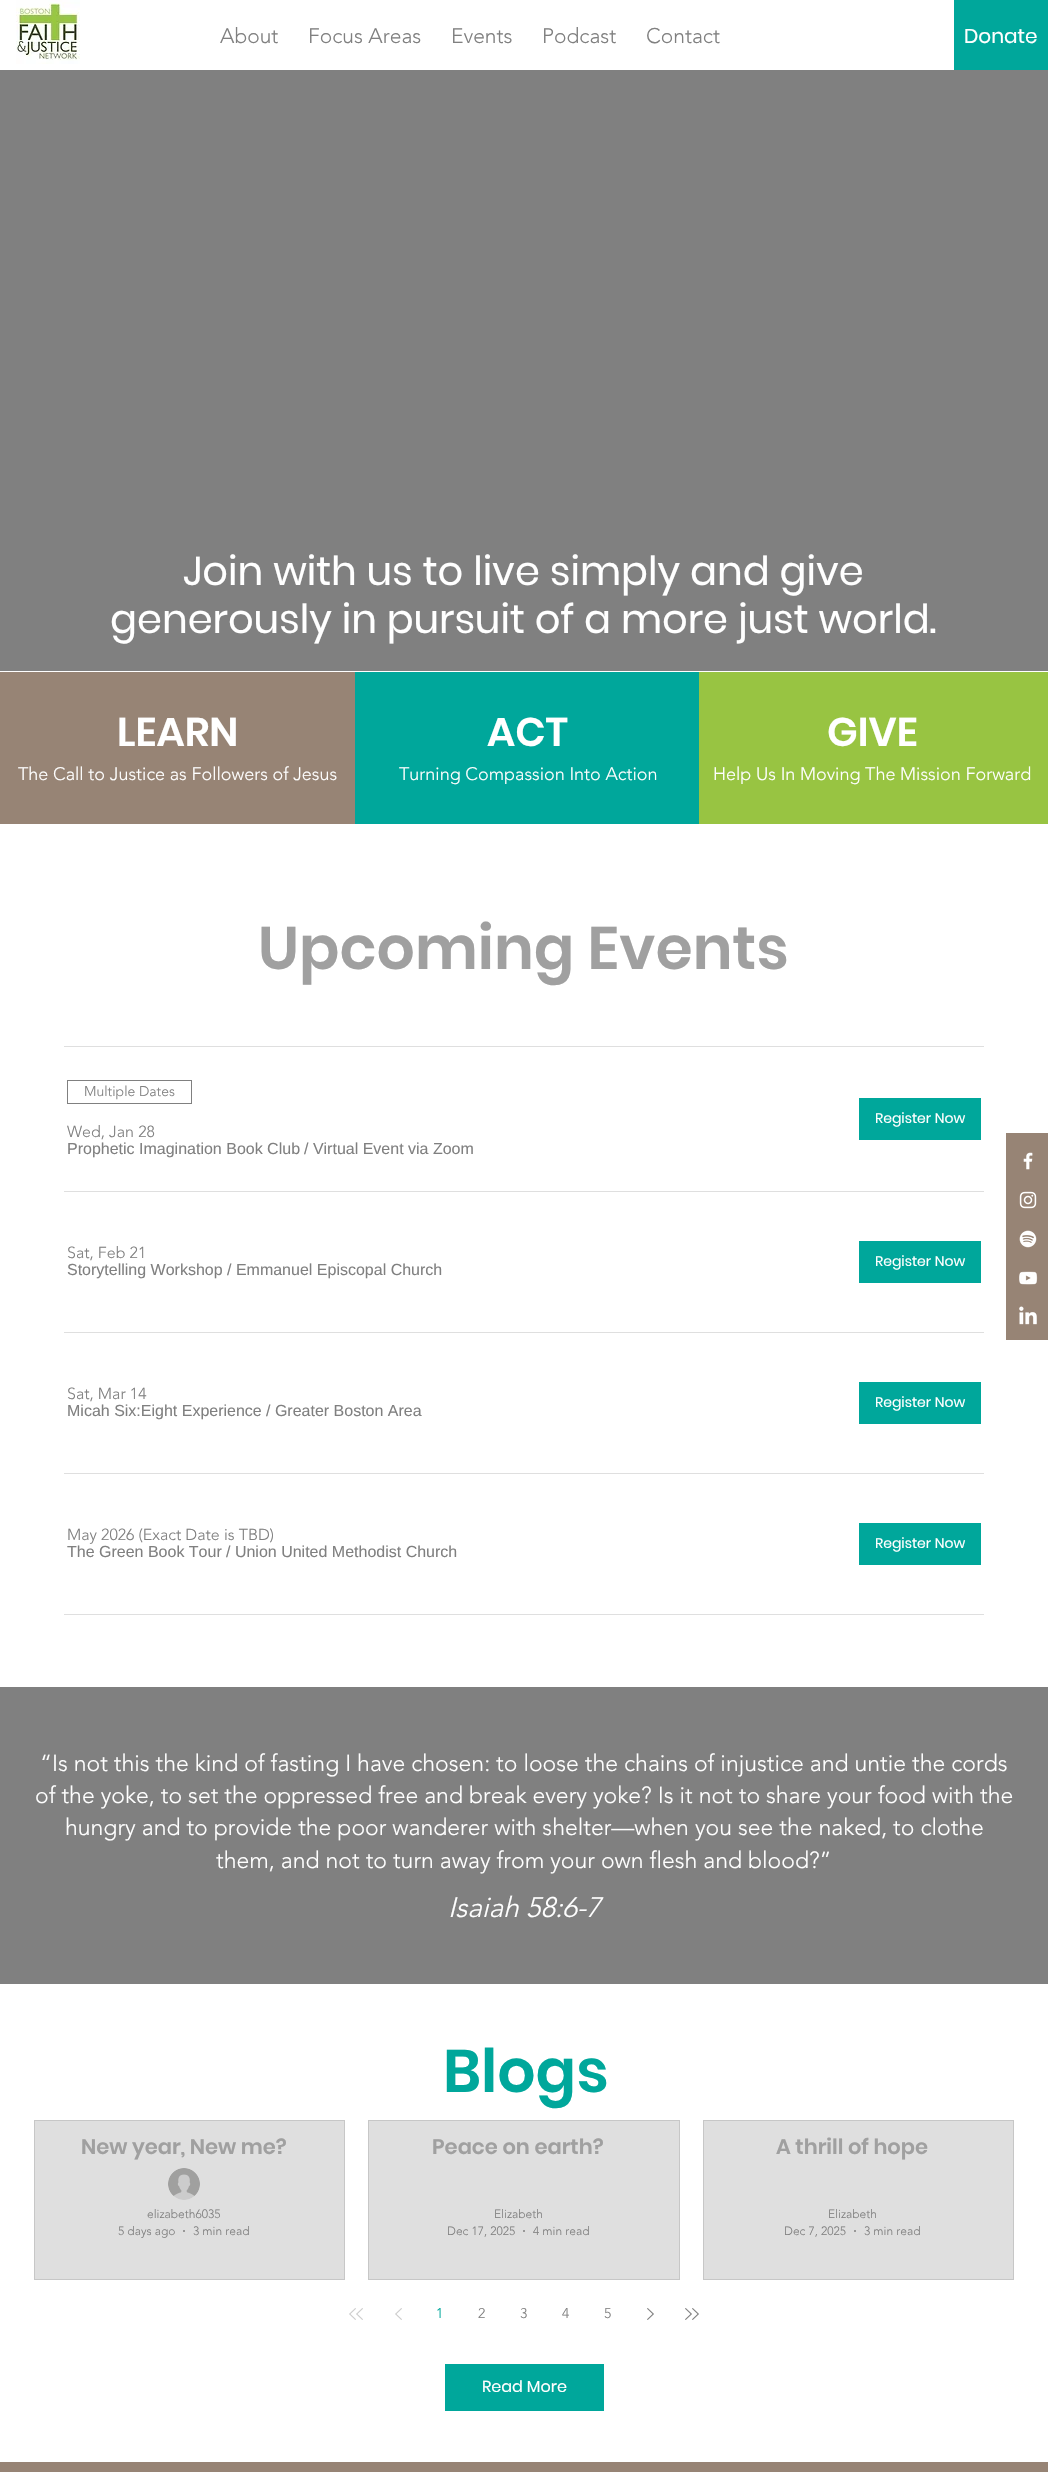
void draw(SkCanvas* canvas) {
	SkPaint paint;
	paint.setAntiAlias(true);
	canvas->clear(0xffffffff);
	canvas->drawImageRect(SkImages::DeferredFromEncodedData(SkData::MakeFromFileName("img1.png")), SkRect::MakeXYWH(16, 0, 64, 64), SkSamplingOptions());
	SkFont f1(fontMgr->matchFamilyStyle("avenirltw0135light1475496", SkFontStyle(300, SkFontStyle::kNormal_Width, SkFontStyle::kUpright_Slant)), 21);
	f1.setSubpixel(true);
	paint.setColor(0xff808080);
	canvas->drawString("About", 220, 43, f1, paint);
	canvas->drawString("Focus Areas", 308, 43, f1, paint);
	canvas->drawString("Events", 451, 43, f1, paint);
	canvas->drawString("Podcast", 542, 43, f1, paint);
	canvas->drawString("Contact", 646, 43, f1, paint);
	paint.setColor(0xff00a79b);
	canvas->drawRect(SkRect::MakeXYWH(954, 0, 94, 70), paint);
	SkFont f2(fontMgr->matchFamilyStyle("Poppins", SkFontStyle::Normal()), 20);
	f2.setSubpixel(true);
	paint.setColor(0xffffffff);
	canvas->drawString("Donate", 964, 43, f2, paint);
	paint.setColor(0xff808080);
	canvas->drawRect(SkRect::MakeXYWH(0, 70, 1048, 601), paint);
	SkFont f3(fontMgr->matchFamilyStyle("Poppins", SkFontStyle::Normal()), 40);
	f3.setSubpixel(true);
	paint.setColor(0xffffffff);
	canvas->drawString("Join with us to live simply and give", 183, 585, f3, paint);
	canvas->drawString("generously in pursuit of a more just world.", 110, 633, f3, paint);
	paint.setColor(0xff978475);
	canvas->drawRect(SkRect::MakeXYWH(0, 672, 355, 152), paint);
	SkFont f4(fontMgr->matchFamilyStyle("Poppins", SkFontStyle(600, SkFontStyle::kNormal_Width, SkFontStyle::kUpright_Slant)), 40);
	f4.setSubpixel(true);
	paint.setColor(0xffffffff);
	canvas->drawString("LEARN", 117, 746, f4, paint);
	SkFont f5(fontMgr->matchFamilyStyle("avenirltw0135light1475496", SkFontStyle(300, SkFontStyle::kNormal_Width, SkFontStyle::kUpright_Slant)), 18);
	f5.setSubpixel(true);
	canvas->drawString("The Call to Justice as Followers of Jesus", 18, 780, f5, paint);
	paint.setColor(0xff00a79b);
	canvas->drawRect(SkRect::MakeXYWH(355, 672, 344, 152), paint);
	paint.setColor(0xffffffff);
	canvas->drawString("ACT", 487, 746, f4, paint);
	canvas->drawString("Turning Compassion Into Action", 399, 780, f5, paint);
	paint.setColor(0xff98c442);
	canvas->drawRect(SkRect::MakeXYWH(699, 672, 349, 152), paint);
	paint.setColor(0xffffffff);
	canvas->drawString("GIVE", 827, 746, f4, paint);
	canvas->drawString("Help Us In Moving The Mission Forward", 713, 780, f5, paint);
	SkFont f6(fontMgr->matchFamilyStyle("Poppins", SkFontStyle(600, SkFontStyle::kNormal_Width, SkFontStyle::kUpright_Slant)), 60);
	f6.setSubpixel(true);
	paint.setColor(0xffa0a0a0);
	canvas->drawString("Upcoming Events", 258, 969, f6, paint);
	paint.setColor(0xffdfdfdf);
	canvas->drawRect(SkRect::MakeXYWH(64, 1046, 920, 1), paint);
	canvas->drawRect(SkRect::MakeXYWH(64, 1191, 920, 1), paint);
	paint.setStroke(true);
	paint.setStrokeWidth(1);
	paint.setColor(0xff808080);
	canvas->drawRect(SkRect::MakeXYWH(67.5, 1080.5, 124, 23), paint);
	SkFont f7(fontMgr->matchFamilyStyle("avenirltw0135light1475496", SkFontStyle(300, SkFontStyle::kNormal_Width, SkFontStyle::kUpright_Slant)), 14);
	f7.setSubpixel(true);
	paint.setStroke(false);
	canvas->drawString("Multiple Dates", 84, 1096, f7, paint);
	SkFont f8(fontMgr->matchFamilyStyle("avenirltw0135light1475496", SkFontStyle(300, SkFontStyle::kNormal_Width, SkFontStyle::kUpright_Slant)), 16);
	f8.setSubpixel(true);
	canvas->drawString("Wed, Jan 28", 67, 1137, f8, paint);
	SkFont f9(fontMgr->matchFamilyStyle("Liberation Sans", SkFontStyle::Normal()), 16);
	f9.setSubpixel(true);
	canvas->drawString("Prophetic Imagination Book Club", 67, 1154, f9, paint);
	canvas->drawString("/ Virtual Event via Zoom", 304, 1154, f9, paint);
	paint.setColor(0xff00a79b);
	canvas->drawRect(SkRect::MakeXYWH(859, 1098, 122, 42), paint);
	SkFont f10(fontMgr->matchFamilyStyle("Poppins", SkFontStyle::Normal()), 14);
	f10.setSubpixel(true);
	paint.setColor(0xffffffff);
	canvas->drawString("Register Now", 875, 1123, f10, paint);
	paint.setColor(0xffdfdfdf);
	canvas->drawRect(SkRect::MakeXYWH(64, 1332, 920, 1), paint);
	paint.setColor(0xff808080);
	canvas->drawString("Sat, Feb 21", 67, 1258, f8, paint);
	canvas->drawString("Storytelling Workshop", 67, 1275, f9, paint);
	canvas->drawString("/ Emmanuel Episcopal Church", 227, 1275, f9, paint);
	paint.setColor(0xff00a79b);
	canvas->drawRect(SkRect::MakeXYWH(859, 1241, 122, 42), paint);
	paint.setColor(0xffffffff);
	canvas->drawString("Register Now", 875, 1266, f10, paint);
	paint.setColor(0xffdfdfdf);
	canvas->drawRect(SkRect::MakeXYWH(64, 1473, 920, 1), paint);
	paint.setColor(0xff808080);
	canvas->drawString("Sat, Mar 14", 67, 1399, f8, paint);
	canvas->drawString("Micah Six:Eight Experience", 67, 1416, f9, paint);
	canvas->drawString("/ Greater Boston Area", 266, 1416, f9, paint);
	paint.setColor(0xff00a79b);
	canvas->drawRect(SkRect::MakeXYWH(859, 1382, 122, 42), paint);
	paint.setColor(0xffffffff);
	canvas->drawString("Register Now", 875, 1407, f10, paint);
	paint.setColor(0xffdfdfdf);
	canvas->drawRect(SkRect::MakeXYWH(64, 1614, 920, 1), paint);
	paint.setColor(0xff808080);
	canvas->drawString("May 2026 (Exact Date is TBD)", 67, 1540, f8, paint);
	canvas->drawString("The Green Book Tour", 67, 1557, f9, paint);
	canvas->drawString("/ Union United Methodist Church", 226, 1557, f9, paint);
	paint.setColor(0xff00a79b);
	canvas->drawRect(SkRect::MakeXYWH(859, 1523, 122, 42), paint);
	paint.setColor(0xffffffff);
	canvas->drawString("Register Now", 875, 1548, f10, paint);
	paint.setColor(0xff808080);
	canvas->drawRect(SkRect::MakeXYWH(0, 1687, 1048, 297), paint);
	SkFont f11(fontMgr->matchFamilyStyle("avenirltw0135light1475496", SkFontStyle(300, SkFontStyle::kNormal_Width, SkFontStyle::kUpright_Slant)), 23);
	f11.setSubpixel(true);
	paint.setColor(0xffffffff);
	canvas->drawString("“Is not this the kind of fasting I have chosen: to loose the chains of injustice and untie the cords", 40, 1771, f11, paint);
	canvas->drawString("of the yoke, to set the oppressed free and break every yoke? Is it not to share your food with the", 35, 1803, f11, paint);
	canvas->drawString("hungry and to provide the poor wanderer with shelter—when you see the naked, to clothe", 65, 1835, f11, paint);
	canvas->drawString("them, and not to turn away from your own flesh and blood?”", 216, 1868, f11, paint);
	SkFont f12(fontMgr->matchFamilyStyle("avenirltw0135light1475496", SkFontStyle(300, SkFontStyle::kNormal_Width, SkFontStyle::kItalic_Slant)), 28);
	f12.setSubpixel(true);
	canvas->drawString("Isaiah 58:6-7", 448, 1917, f12, paint);
	paint.setColor(0xff00a79b);
	canvas->drawString("Blogs", 443, 2092, f6, paint);
	paint.setColor(0xffdfdfdf);
	canvas->drawRect(SkRect::MakeXYWH(34.5, 2120.5, 310, 159), paint);
	paint.setStroke(true);
	paint.setColor(0xffc7c7c7);
	canvas->drawRect(SkRect::MakeXYWH(34.5, 2120.5, 310, 159), paint);
	SkFont f13(fontMgr->matchFamilyStyle("Poppins", SkFontStyle(600, SkFontStyle::kNormal_Width, SkFontStyle::kUpright_Slant)), 21);
	f13.setSubpixel(true);
	paint.setStroke(false);
	paint.setColor(0xffa0a0a0);
	canvas->drawString("New year, New me?", 81, 2154, f13, paint);
	canvas->drawImageRect(SkImages::DeferredFromEncodedData(SkData::MakeFromFileName("img2.png")), SkRect::MakeXYWH(168, 2168, 32, 32), SkSamplingOptions());
	SkFont f14(fontMgr->matchFamilyStyle("avenirltw0135light1475496", SkFontStyle(300, SkFontStyle::kNormal_Width, SkFontStyle::kUpright_Slant)), 12);
	f14.setSubpixel(true);
	paint.setColor(0xff808080);
	canvas->drawString("elizabeth6035", 147, 2218, f14, paint);
	canvas->drawString("5 days ago", 118, 2235, f14, paint);
	canvas->drawCircle(184, 2231, 1, paint);
	canvas->drawString("3 min read", 193, 2235, f14, paint);
	paint.setColor(0xffdfdfdf);
	canvas->drawRect(SkRect::MakeXYWH(368.5, 2120.5, 311, 159), paint);
	paint.setStroke(true);
	paint.setColor(0xffc7c7c7);
	canvas->drawRect(SkRect::MakeXYWH(368.5, 2120.5, 311, 159), paint);
	paint.setStroke(false);
	paint.setColor(0xffa0a0a0);
	canvas->drawString("Peace on earth?", 432, 2154, f13, paint);
	paint.setColor(0xff808080);
	canvas->drawString("Elizabeth", 494, 2218, f14, paint);
	canvas->drawString("Dec 17, 2025", 447, 2235, f14, paint);
	canvas->drawCircle(524, 2231, 1, paint);
	canvas->drawString("4 min read", 533, 2235, f14, paint);
	paint.setColor(0xffdfdfdf);
	canvas->drawRect(SkRect::MakeXYWH(703.5, 2120.5, 310, 159), paint);
	paint.setStroke(true);
	paint.setColor(0xffc7c7c7);
	canvas->drawRect(SkRect::MakeXYWH(703.5, 2120.5, 310, 159), paint);
	paint.setStroke(false);
	paint.setColor(0xffa0a0a0);
	canvas->drawString("A thrill of hope", 776, 2154, f13, paint);
	paint.setColor(0xff808080);
	canvas->drawString("Elizabeth", 828, 2218, f14, paint);
	canvas->drawString("Dec 7, 2025", 784, 2235, f14, paint);
	canvas->drawCircle(855, 2231, 1, paint);
	canvas->drawString("3 min read", 864, 2235, f14, paint);
	canvas->drawImageRect(SkImages::DeferredFromEncodedData(SkData::MakeFromFileName("img3.png")), SkRect::MakeXYWH(349, 2308, 7, 12), SkSamplingOptions());
	canvas->drawImageRect(SkImages::DeferredFromEncodedData(SkData::MakeFromFileName("img3.png")), SkRect::MakeXYWH(356, 2308, 7, 12), SkSamplingOptions());
	canvas->drawImageRect(SkImages::DeferredFromEncodedData(SkData::MakeFromFileName("img3.png")), SkRect::MakeXYWH(395, 2308, 7, 12), SkSamplingOptions());
	paint.setColor(0xff00a79b);
	canvas->drawString("1", 436, 2318, f7, paint);
	paint.setColor(0xff808080);
	canvas->drawString("2", 478, 2318, f7, paint);
	canvas->drawString("3", 520, 2318, f7, paint);
	canvas->drawString("4", 562, 2318, f7, paint);
	canvas->drawString("5", 604, 2318, f7, paint);
	canvas->drawImageRect(SkImages::DeferredFromEncodedData(SkData::MakeFromFileName("img4.png")), SkRect::MakeXYWH(647, 2308, 7, 12), SkSamplingOptions());
	canvas->drawImageRect(SkImages::DeferredFromEncodedData(SkData::MakeFromFileName("img4.png")), SkRect::MakeXYWH(685, 2308, 7, 12), SkSamplingOptions());
	canvas->drawImageRect(SkImages::DeferredFromEncodedData(SkData::MakeFromFileName("img4.png")), SkRect::MakeXYWH(692, 2308, 7, 12), SkSamplingOptions());
	paint.setColor(0xff00a79b);
	canvas->drawRect(SkRect::MakeXYWH(445, 2364, 159, 47), paint);
	SkFont f15(fontMgr->matchFamilyStyle("Poppins", SkFontStyle::Normal()), 16);
	f15.setSubpixel(true);
	paint.setColor(0xffffffff);
	canvas->drawString("Read More", 482, 2392, f15, paint);
	paint.setColor(0xff978475);
	canvas->drawRect(SkRect::MakeXYWH(0, 2462, 1048, 10), paint);
	canvas->drawRect(SkRect::MakeXYWH(1006, 1133, 42, 207), paint);
	canvas->drawImageRect(SkImages::DeferredFromEncodedData(SkData::MakeFromFileName("img5.png")), SkRect::MakeXYWH(1023, 1152, 10, 18), SkSamplingOptions());
	canvas->drawImageRect(SkImages::DeferredFromEncodedData(SkData::MakeFromFileName("img6.png")), SkRect::MakeXYWH(1019, 1191, 18, 18), SkSamplingOptions());
	canvas->drawImageRect(SkImages::DeferredFromEncodedData(SkData::MakeFromFileName("img7.png")), SkRect::MakeXYWH(1019, 1230, 18, 18), SkSamplingOptions());
	canvas->drawImageRect(SkImages::DeferredFromEncodedData(SkData::MakeFromFileName("img8.png")), SkRect::MakeXYWH(1019, 1271, 19, 14), SkSamplingOptions());
	canvas->drawImageRect(SkImages::DeferredFromEncodedData(SkData::MakeFromFileName("img9.png")), SkRect::MakeXYWH(1019, 1306, 18, 19), SkSamplingOptions());
}
